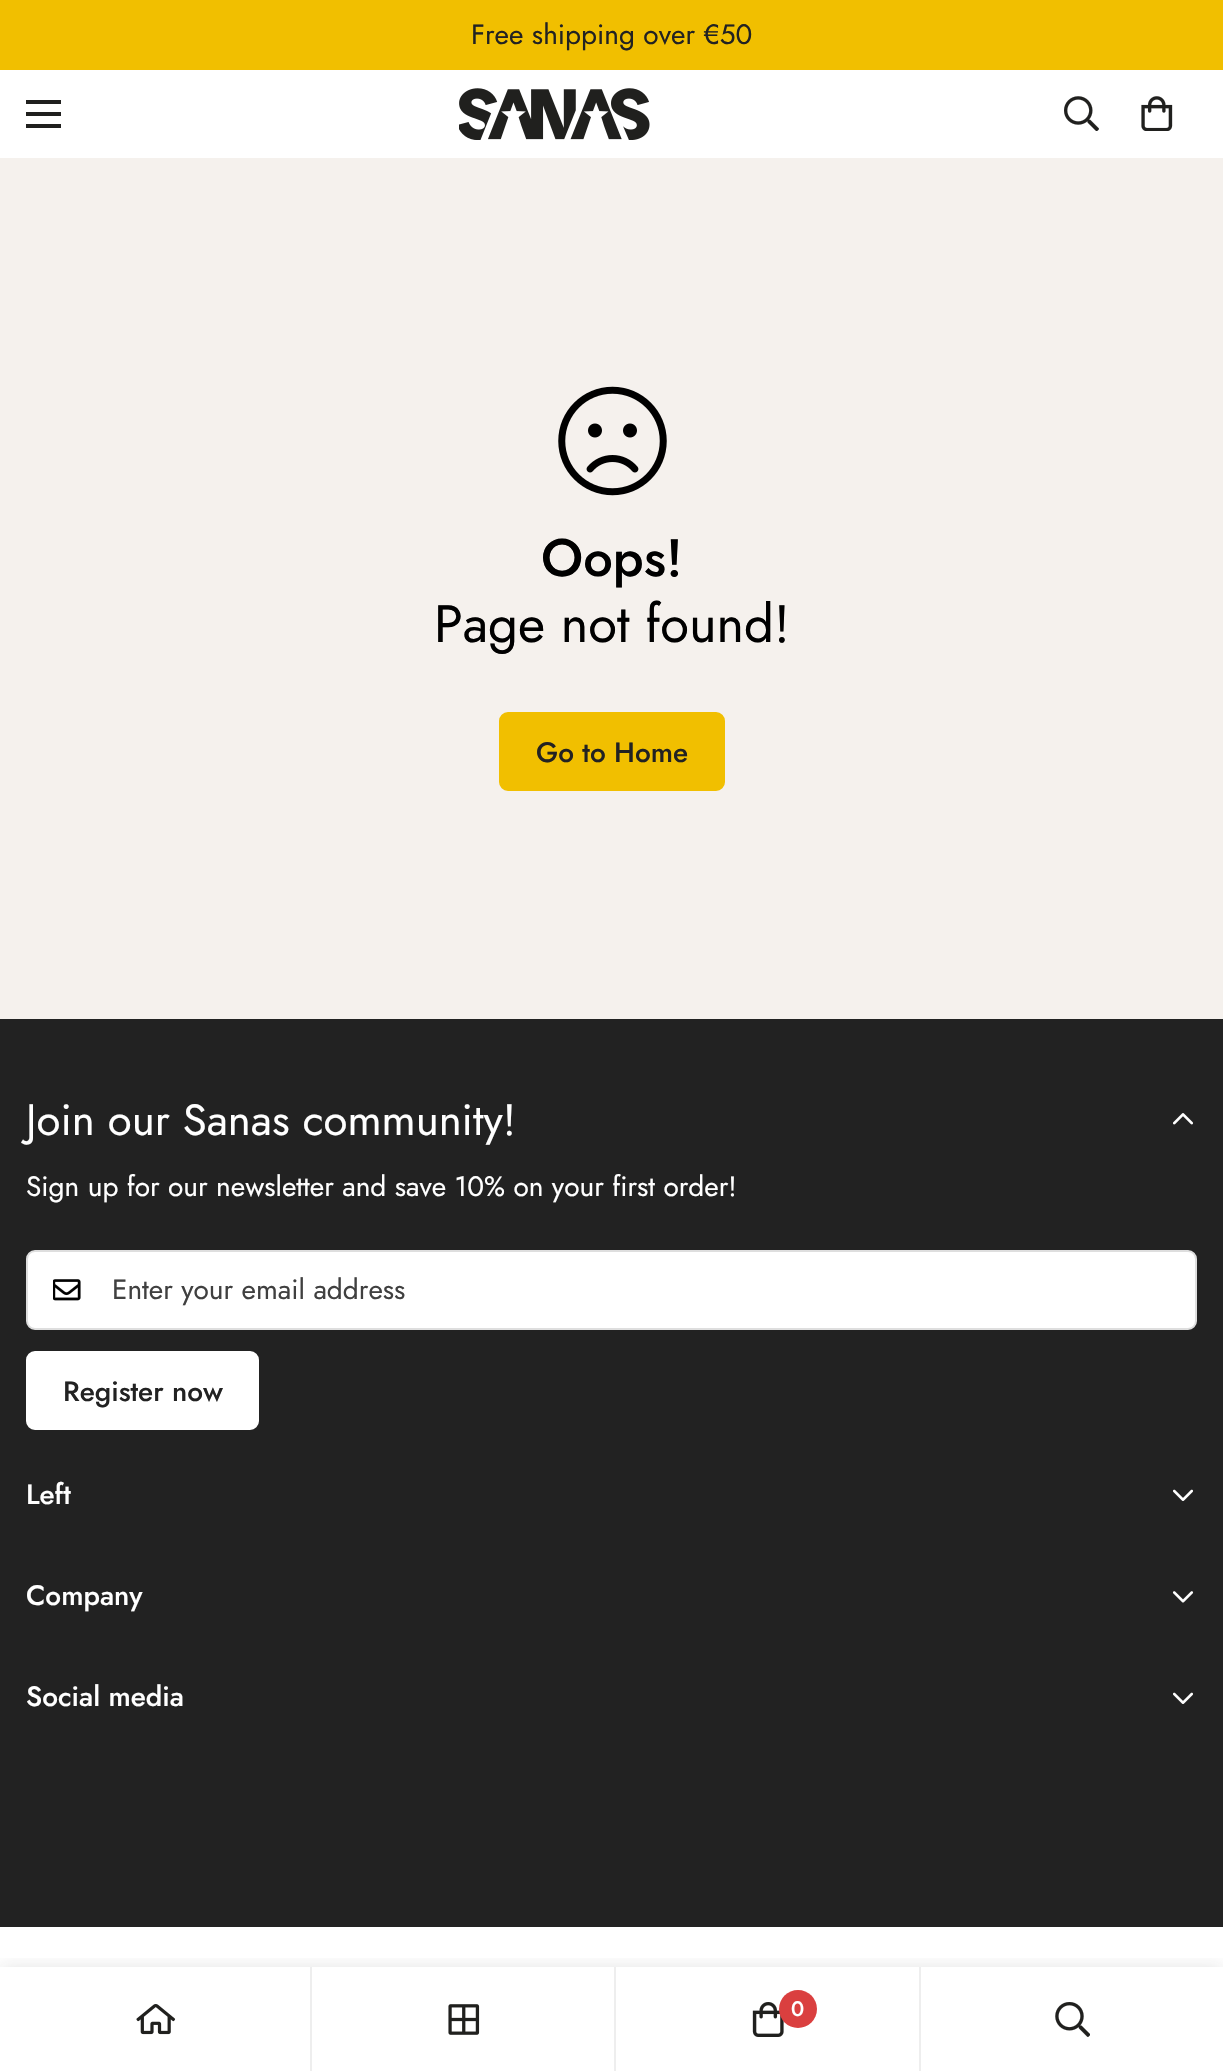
void draw(SkCanvas* canvas) {
	SkPaint paint;
	paint.setAntiAlias(true);
	canvas->clear(0xffffffff);
	paint.setColor(0xfff1bf00);
	canvas->drawRect(SkRect::MakeXYWH(0, 0, 1223, 70), paint);
	SkFont f1(fontMgr->matchFamilyStyle("Jost", SkFontStyle::Normal()), 28);
	f1.setSubpixel(true);
	paint.setColor(0xff222222);
	canvas->drawString("Free shipping over €50", 471, 44, f1, paint);
	paint.setColor(0xff20201e);
	canvas->drawRect(SkRect::MakeXYWH(26, 112, 35, 4), paint);
	canvas->drawRect(SkRect::MakeXYWH(26, 100, 35, 4), paint);
	canvas->drawRect(SkRect::MakeXYWH(26, 124, 35, 4), paint);
	canvas->drawImageRect(SkImages::DeferredFromEncodedData(SkData::MakeFromFileName("img1.png")), SkRect::MakeXYWH(459, 88, 191, 52), SkSamplingOptions());
	canvas->drawImageRect(SkImages::DeferredFromEncodedData(SkData::MakeFromFileName("img2.png")), SkRect::MakeXYWH(1064, 96, 35, 35), SkSamplingOptions());
	canvas->drawImageRect(SkImages::DeferredFromEncodedData(SkData::MakeFromFileName("img3.png")), SkRect::MakeXYWH(1141, 96, 32, 35), SkSamplingOptions());
	paint.setColor(0xfff5f1ed);
	canvas->drawRect(SkRect::MakeXYWH(0, 158, 1223, 861), paint);
	canvas->drawImageRect(SkImages::DeferredFromEncodedData(SkData::MakeFromFileName("img4.png")), SkRect::MakeXYWH(558, 386, 109, 110), SkSamplingOptions());
	SkFont f2(fontMgr->matchFamilyStyle("Jost", SkFontStyle(500, SkFontStyle::kNormal_Width, SkFontStyle::kUpright_Slant)), 52.5);
	f2.setSubpixel(true);
	paint.setColor(0xff000000);
	canvas->drawString("Oops!", 541, 576, f2, paint);
	SkFont f3(fontMgr->matchFamilyStyle("Jost", SkFontStyle::Normal()), 52.5);
	f3.setSubpixel(true);
	canvas->drawString("Page not found!", 434, 642, f3, paint);
	paint.setColor(0xfff1bf00);
	canvas->drawRoundRect(SkRect::MakeXYWH(500, 713, 224, 77), 8, 8, paint);
	paint.setStroke(true);
	paint.setStrokeWidth(2);
	canvas->drawRoundRect(SkRect::MakeXYWH(500, 713, 224, 77), 8, 8, paint);
	SkFont f4(fontMgr->matchFamilyStyle("Jost", SkFontStyle(500, SkFontStyle::kNormal_Width, SkFontStyle::kUpright_Slant)), 28);
	f4.setSubpixel(true);
	paint.setStroke(false);
	paint.setColor(0xff222222);
	canvas->drawString("Go to Home", 536, 762, f4, paint);
	canvas->drawRect(SkRect::MakeXYWH(0, 1019, 1223, 908), paint);
	SkFont f5(fontMgr->matchFamilyStyle("Jost", SkFontStyle::Normal()), 43.75);
	f5.setSubpixel(true);
	paint.setColor(0xffffffff);
	canvas->drawString("Join our Sanas community!", 26, 1135, f5, paint);
	canvas->drawImageRect(SkImages::DeferredFromEncodedData(SkData::MakeFromFileName("img5.png")), SkRect::MakeXYWH(1173, 1113, 20, 12), SkSamplingOptions());
	canvas->drawString("Sign up for our newsletter and save 10% on your first order!", 26, 1196, f1, paint);
	canvas->drawRoundRect(SkRect::MakeXYWH(27, 1251, 1169, 78), 8, 8, paint);
	paint.setStroke(true);
	paint.setColor(0xffdedede);
	canvas->drawRoundRect(SkRect::MakeXYWH(27, 1251, 1169, 78), 8, 8, paint);
	canvas->drawImageRect(SkImages::DeferredFromEncodedData(SkData::MakeFromFileName("img6.png")), SkRect::MakeXYWH(53, 1279, 28, 22), SkSamplingOptions());
	paint.setStroke(false);
	paint.setColor(0xff404040);
	canvas->drawString("Enter your email address", 112, 1299, f1, paint);
	paint.setColor(0xffffffff);
	canvas->drawRoundRect(SkRect::MakeXYWH(27, 1352, 231, 77), 8, 8, paint);
	paint.setStroke(true);
	canvas->drawRoundRect(SkRect::MakeXYWH(27, 1352, 231, 77), 8, 8, paint);
	paint.setStroke(false);
	paint.setColor(0xff222222);
	canvas->drawString("Register now", 63, 1401, f4, paint);
	paint.setColor(0xffffffff);
	canvas->drawString("Left", 26, 1504, f4, paint);
	canvas->drawImageRect(SkImages::DeferredFromEncodedData(SkData::MakeFromFileName("img7.png")), SkRect::MakeXYWH(1173, 1489, 20, 12), SkSamplingOptions());
	canvas->drawString("Company", 26, 1605, f4, paint);
	canvas->drawImageRect(SkImages::DeferredFromEncodedData(SkData::MakeFromFileName("img8.png")), SkRect::MakeXYWH(1172, 1591, 22, 12), SkSamplingOptions());
	canvas->drawString("Social media", 26, 1706, f4, paint);
	canvas->drawImageRect(SkImages::DeferredFromEncodedData(SkData::MakeFromFileName("img7.png")), SkRect::MakeXYWH(1173, 1692, 20, 12), SkSamplingOptions());
	canvas->save();
	canvas->clipRect(SkRect::MakeXYWH(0, 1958, 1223, 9));
	paint.setColor(0x1f20201e);
	paint.setMaskFilter(SkMaskFilter::MakeBlur(kNormal_SkBlurStyle, 9));
	canvas->drawRect(SkRect::MakeXYWH(0, 1967, 1223, 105), paint);
	paint.setMaskFilter(nullptr);
	canvas->restore();
	paint.setColor(0xffeeeeee);
	canvas->drawRect(SkRect::MakeXYWH(310, 1967, 2, 104), paint);
	canvas->drawImageRect(SkImages::DeferredFromEncodedData(SkData::MakeFromFileName("img9.png")), SkRect::MakeXYWH(136, 2004, 40, 31), SkSamplingOptions());
	canvas->drawRect(SkRect::MakeXYWH(614, 1967, 2, 104), paint);
	canvas->drawImageRect(SkImages::DeferredFromEncodedData(SkData::MakeFromFileName("img10.png")), SkRect::MakeXYWH(448, 2004, 32, 31), SkSamplingOptions());
	canvas->drawRect(SkRect::MakeXYWH(919, 1967, 2, 104), paint);
	canvas->drawImageRect(SkImages::DeferredFromEncodedData(SkData::MakeFromFileName("img11.png")), SkRect::MakeXYWH(752, 2002, 32, 35), SkSamplingOptions());
	paint.setColor(0xffda3f3f);
	canvas->drawCircle(798, 2009, 19, paint);
	SkFont f6(fontMgr->matchFamilyStyle("Jost", SkFontStyle(500, SkFontStyle::kNormal_Width, SkFontStyle::kUpright_Slant)), 21);
	f6.setSubpixel(true);
	paint.setColor(0xffffffff);
	canvas->drawString("0", 791, 2016, f6, paint);
	canvas->drawImageRect(SkImages::DeferredFromEncodedData(SkData::MakeFromFileName("img12.png")), SkRect::MakeXYWH(1055, 2002, 35, 35), SkSamplingOptions());
}
